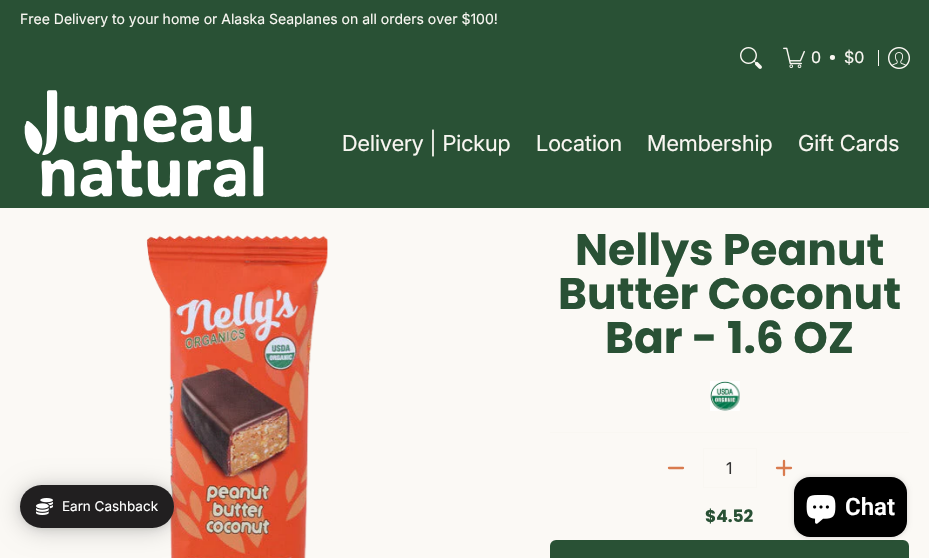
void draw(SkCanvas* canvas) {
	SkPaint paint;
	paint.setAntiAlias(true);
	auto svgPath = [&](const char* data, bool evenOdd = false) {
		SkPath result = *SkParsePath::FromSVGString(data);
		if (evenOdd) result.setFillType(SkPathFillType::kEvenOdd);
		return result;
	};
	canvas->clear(0xfffbf9f5);
	paint.setColor(0xff295135);
	canvas->drawRect(SkRect::MakeXYWH(0, 0, 929, 208), paint);
	SkFont f1(fontMgr->matchFamilyStyle("Inter", SkFontStyle::Normal()), 14);
	f1.setSubpixel(true);
	paint.setColor(0xfff9f7f2);
	canvas->drawString("Free Delivery to your home or Alaska Seaplanes on all orders over $100!", 20, 24, f1, paint);
	canvas->drawImageRect(SkImages::DeferredFromEncodedData(SkData::MakeFromFileName("img1.png")), SkRect::MakeXYWH(740, 47, 22, 22), SkSamplingOptions());
	canvas->drawImageRect(SkImages::DeferredFromEncodedData(SkData::MakeFromFileName("img2.png")), SkRect::MakeXYWH(783, 47, 22, 22), SkSamplingOptions());
	SkFont f2(fontMgr->matchFamilyStyle("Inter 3", SkFontStyle::Normal()), 16);
	f2.setSubpixel(true);
	canvas->drawString("0", 811, 63, f2, paint);
	canvas->drawString("•", 828, 62, f2, paint);
	canvas->drawString("$0", 844, 63, f2, paint);
	canvas->drawRect(SkRect::MakeXYWH(878, 50, 1, 16), paint);
	canvas->drawImageRect(SkImages::DeferredFromEncodedData(SkData::MakeFromFileName("img3.png")), SkRect::MakeXYWH(888, 47, 22, 22), SkSamplingOptions());
	canvas->drawImageRect(SkImages::DeferredFromEncodedData(SkData::MakeFromFileName("img4.png")), SkRect::MakeXYWH(24, 90, 240, 107), SkSamplingOptions());
	SkFont f3(fontMgr->matchFamilyStyle("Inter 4", SkFontStyle::Normal()), 22);
	f3.setSubpixel(true);
	canvas->drawString("Delivery | Pickup", 342, 151, f3, paint);
	canvas->drawString("Location", 536, 151, f3, paint);
	canvas->drawString("Membership", 647, 151, f3, paint);
	canvas->drawString("Gift Cards", 798, 151, f3, paint);
	canvas->drawImageRect(SkImages::DeferredFromEncodedData(SkData::MakeFromFileName("img5.png")), SkRect::MakeXYWH(146, 235, 182, 323), SkSamplingOptions());
	SkFont f4(fontMgr->matchFamilyStyle("Poppins", SkFontStyle::Bold()), 44);
	f4.setSubpixel(true);
	paint.setColor(0xff295135);
	canvas->drawString("Nellys Peanut", 575, 265, f4, paint);
	canvas->drawString("Butter Coconut", 558, 309, f4, paint);
	canvas->drawString("Bar - 1.6 OZ", 605, 353, f4, paint);
	paint.setColor(0xfff9f7f2);
	canvas->drawRect(SkRect::MakeXYWH(550, 432, 359, 1), paint);
	canvas->drawImageRect(SkImages::DeferredFromEncodedData(SkData::MakeFromFileName("img6.png")), SkRect::MakeXYWH(710, 381, 30, 30), SkSamplingOptions());
	paint.setStroke(true);
	paint.setStrokeWidth(2.3);
	paint.setStrokeCap(SkPaint::kRound_Cap);
	paint.setStrokeJoin(SkPaint::kRound_Join);
	paint.setColor(0xffd97b4e);
	canvas->drawPath(svgPath("M683 468H669"), paint);
	paint.setStrokeWidth(1);
	paint.setStrokeCap(SkPaint::kButt_Cap);
	paint.setStrokeJoin(SkPaint::kMiter_Join);
	paint.setColor(0xfff9f7f2);
	canvas->drawRect(SkRect::MakeXYWH(703.5, 448.5, 53, 39), paint);
	SkFont f5(fontMgr->matchFamilyStyle("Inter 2", SkFontStyle::Normal()), 16);
	f5.setSubpixel(true);
	paint.setStroke(false);
	paint.setColor(0xff333333);
	canvas->drawString("1", 726, 474, f5, paint);
	paint.setStroke(true);
	paint.setStrokeWidth(2.3);
	paint.setStrokeCap(SkPaint::kRound_Cap);
	paint.setStrokeJoin(SkPaint::kRound_Join);
	paint.setColor(0xffd97b4e);
	canvas->drawPath(svgPath("M784 461V475M791 468H777"), paint);
	SkFont f6(fontMgr->matchFamilyStyle("Poppins", SkFontStyle::Bold()), 17);
	f6.setSubpixel(true);
	paint.setStroke(false);
	paint.setColor(0xff295135);
	canvas->drawString("$4.52", 705, 522, f6, paint);
	canvas->drawRoundRect(SkRect::MakeXYWH(551, 541, 357, 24), 5, 5, paint);
	paint.setStroke(true);
	paint.setStrokeWidth(2);
	paint.setStrokeCap(SkPaint::kButt_Cap);
	paint.setStrokeJoin(SkPaint::kMiter_Join);
	canvas->drawRoundRect(SkRect::MakeXYWH(551, 541, 357, 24), 5, 5, paint);
	paint.setStroke(false);
	paint.setColor(0x33000000);
	paint.setMaskFilter(SkMaskFilter::MakeBlur(kNormal_SkBlurStyle, 12));
	canvas->drawRoundRect(SkRect::MakeXYWH(20, 487, 154, 43), 21.5, 21.5, paint);
	paint.setMaskFilter(nullptr);
	paint.setColor(0x1a000000);
	paint.setMaskFilter(SkMaskFilter::MakeBlur(kNormal_SkBlurStyle, 3));
	canvas->drawRoundRect(SkRect::MakeXYWH(20, 486, 154, 43), 21.5, 21.5, paint);
	paint.setMaskFilter(nullptr);
	paint.setColor(0xff211f20);
	canvas->drawRoundRect(SkRect::MakeXYWH(20, 485, 154, 43), 21.5, 21.5, paint);
	canvas->drawImageRect(SkImages::DeferredFromEncodedData(SkData::MakeFromFileName("img7.png")), SkRect::MakeXYWH(36, 498, 17, 17), SkSamplingOptions());
	SkFont f7(fontMgr->matchFamilyStyle("Inter", SkFontStyle::Normal()), 13.5);
	f7.setSubpixel(true);
	paint.setColor(0xffffffff);
	canvas->drawString("Earn Cashback", 62, 511, f7, paint);
	paint.setColor(0x26000000);
	paint.setMaskFilter(SkMaskFilter::MakeBlur(kNormal_SkBlurStyle, 2.5));
	canvas->drawRoundRect(SkRect::MakeXYWH(794, 477, 113, 60), 16, 16, paint);
	paint.setMaskFilter(nullptr);
	paint.setColor(0xff000000);
	canvas->drawRoundRect(SkRect::MakeXYWH(794, 477, 113, 60), 16, 16, paint);
	canvas->drawImageRect(SkImages::DeferredFromEncodedData(SkData::MakeFromFileName("img8.png")), SkRect::MakeXYWH(806, 495, 30, 29), SkSamplingOptions());
	SkFont f8(fontMgr->matchFamilyStyle("Roboto", SkFontStyle(600, SkFontStyle::kNormal_Width, SkFontStyle::kUpright_Slant)), 24);
	f8.setSubpixel(true);
	paint.setColor(0xffffffff);
	canvas->drawString("Chat", 845, 515, f8, paint);
}
